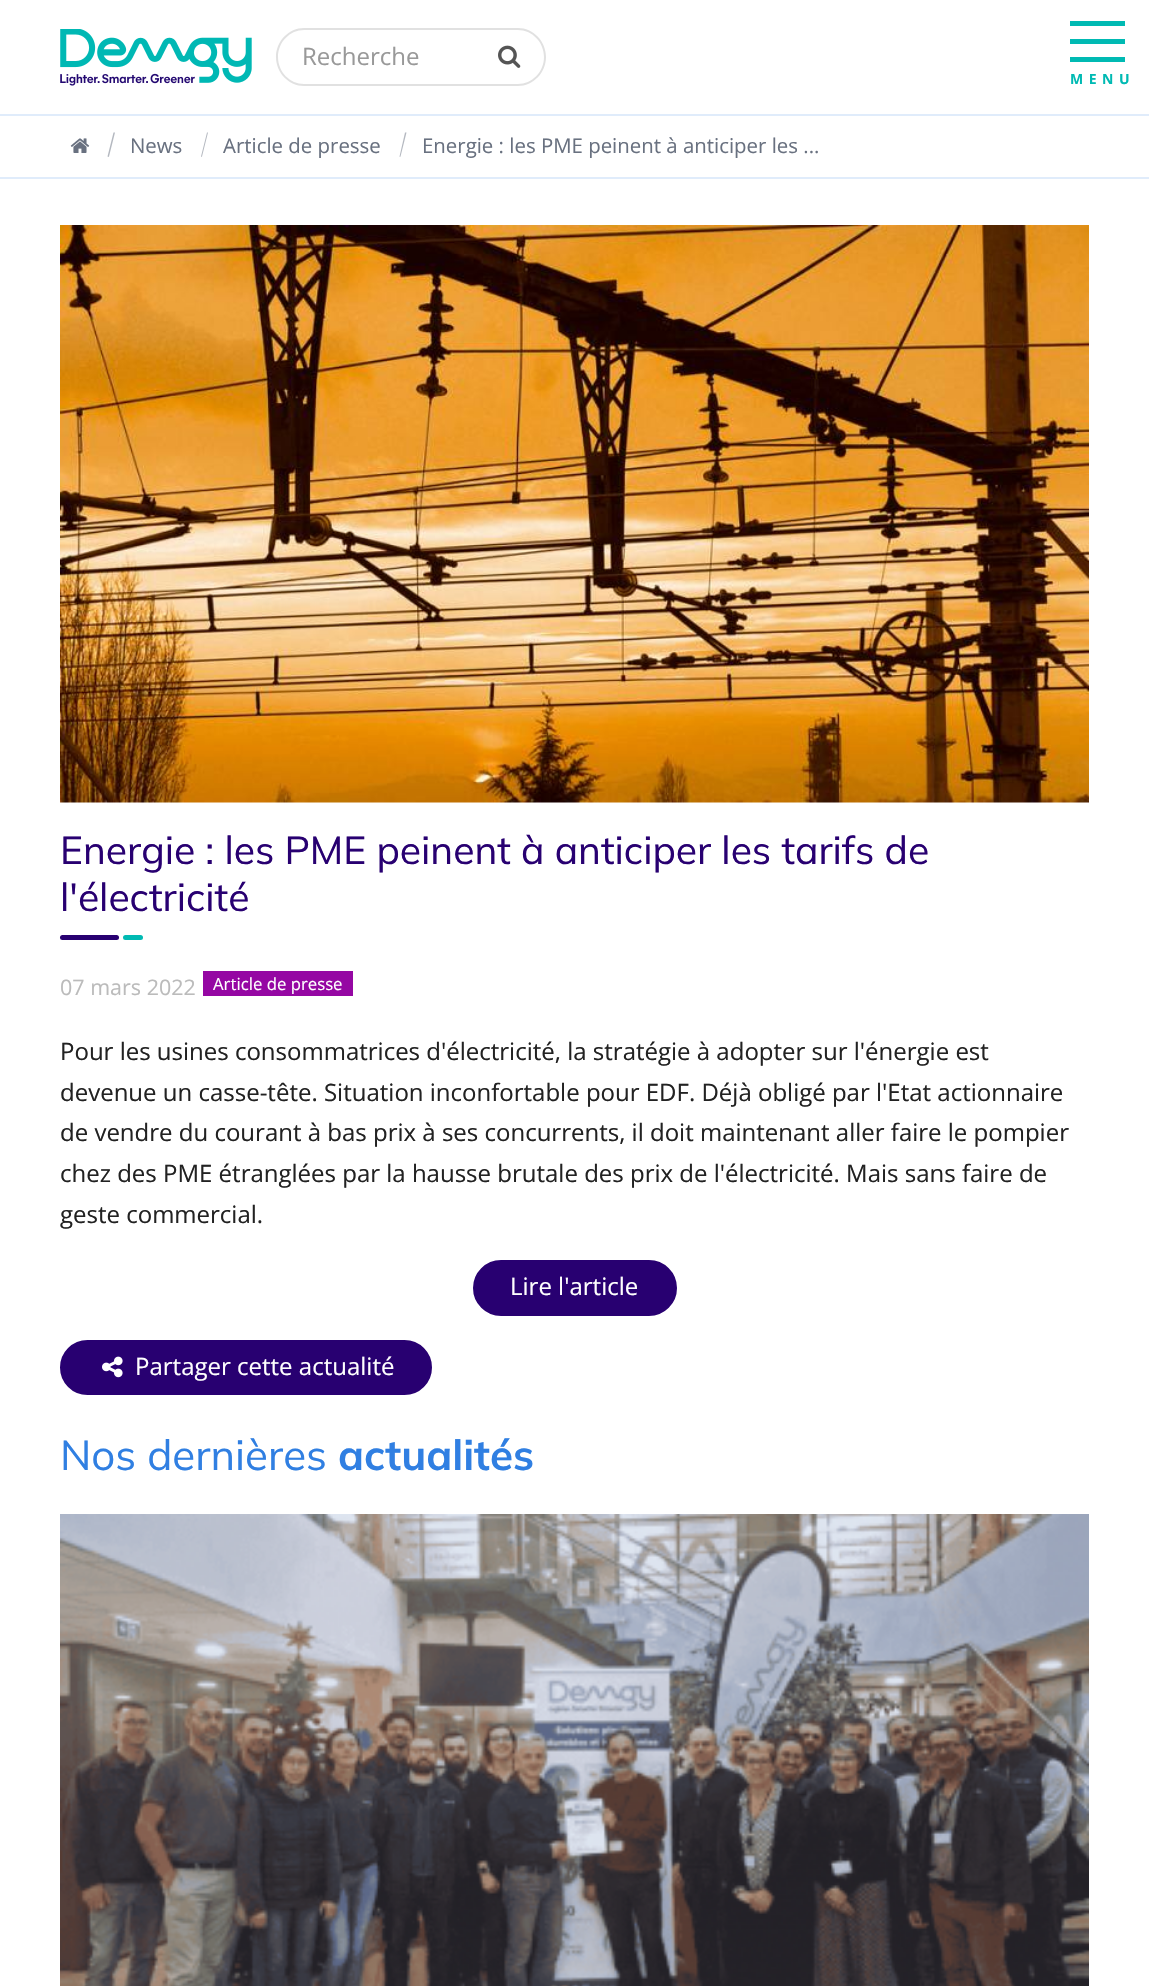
void draw(SkCanvas* canvas) {
	SkPaint paint;
	paint.setAntiAlias(true);
	auto spacedText = [&](const char* s, float x, float y, const SkFont& font, const SkPaint& ink, float letter, float word) {
		std::vector<SkGlyphID> glyphs(font.countText(s, strlen(s), SkTextEncoding::kUTF8));
		std::vector<float> xs(glyphs.size());
		font.textToGlyphs(s, strlen(s), SkTextEncoding::kUTF8, glyphs);
		font.getXPos(glyphs, xs, x);
		float extra = 0;
		for (size_t i = 0; i < glyphs.size(); i++) {
			xs[i] += extra;
			extra += letter + word * (glyphs[i] == font.unicharToGlyph(' '));
		}
		canvas->drawTextBlob(SkTextBlob::MakeFromPosHGlyphs(glyphs, xs, y, font), 0, 0, ink);
	};
	auto svgPath = [&](const char* data, bool evenOdd = false) {
		SkPath result = *SkParsePath::FromSVGString(data);
		if (evenOdd) result.setFillType(SkPathFillType::kEvenOdd);
		return result;
	};
	canvas->clear(0xffffffff);
	paint.setColor(0xffe0ecfb);
	canvas->drawRect(SkRect::MakeXYWH(0, 114, 1149, 2), paint);
	canvas->drawImageRect(SkImages::DeferredFromEncodedData(SkData::MakeFromFileName("img1.png")), SkRect::MakeXYWH(60, 29, 192, 57), SkSamplingOptions());
	paint.setColor(0xffe1e1e1);
	canvas->drawPath(svgPath("M474 28H518C533 28 546 41 546 57C546 73 533 86 518 86H474ZM474 30H518C532 30 544 42 544 57C544 72 532 84 518 84H474Z", true), paint);
	canvas->drawPath(svgPath("M304 28H476V86H304C289 86 276 73 276 57C276 41 289 28 304 28ZM304 30H476V84H304C290 84 278 72 278 57C278 42 290 30 304 30Z", true), paint);
	SkFont f1(fontMgr->matchFamilyStyle("Open Sans", SkFontStyle::Normal()), 24);
	f1.setSubpixel(true);
	paint.setColor(0xff999999);
	canvas->drawString("Recherche", 302, 65, f1, paint);
	canvas->drawImageRect(SkImages::DeferredFromEncodedData(SkData::MakeFromFileName("img2.png")), SkRect::MakeXYWH(498, 45, 23, 23), SkSamplingOptions());
	paint.setColor(0xff00bab3);
	canvas->drawRect(SkRect::MakeXYWH(1070, 39, 55, 5), paint);
	canvas->drawRect(SkRect::MakeXYWH(1070, 21, 55, 5), paint);
	canvas->drawRect(SkRect::MakeXYWH(1070, 57, 55, 5), paint);
	SkFont f2(fontMgr->matchFamilyStyle("Open Sans", SkFontStyle::Bold()), 14);
	f2.setSubpixel(true);
	spacedText("MENU", 1070, 84, f2, paint, 5.5, 0);
	paint.setColor(0xffe0ecfb);
	canvas->drawRect(SkRect::MakeXYWH(0, 177, 1149, 2), paint);
	canvas->drawImageRect(SkImages::DeferredFromEncodedData(SkData::MakeFromFileName("img3.png")), SkRect::MakeXYWH(70, 138, 20, 15), SkSamplingOptions());
	paint.setColor(0xffb4b8c0);
	canvas->drawPath(svgPath("M114.5 132.5H115L109 156.5L108.5 157L107.5 156.5L113.5 132.5Z"), paint);
	SkFont f3(fontMgr->matchFamilyStyle("Open Sans", SkFontStyle::Normal()), 20.4);
	f3.setSubpixel(true);
	paint.setColor(0xff697180);
	canvas->drawString("News", 130, 153, f3, paint);
	paint.setColor(0xffb4b8c0);
	canvas->drawPath(svgPath("M207.5 132.5H208L202 156.5L201.5 157L201 156.5L207 132.5Z"), paint);
	paint.setColor(0xff697180);
	canvas->drawString("Article de presse", 223, 153, f3, paint);
	paint.setColor(0xffb4b8c0);
	canvas->drawPath(svgPath("M406 132.5H406.5L400.5 156.5L400 157L399.5 156.5L405 132.5Z"), paint);
	paint.setColor(0xff697180);
	canvas->drawString("Energie : les PME peinent à anticiper les ...", 422, 153, f3, paint);
	canvas->drawImageRect(SkImages::DeferredFromEncodedData(SkData::MakeFromFileName("img4.png")), SkRect::MakeXYWH(60, 225, 1029, 578), SkSamplingOptions());
	SkFont f4(fontMgr->matchFamilyStyle("Mulish", SkFontStyle::Normal()), 39);
	f4.setSubpixel(true);
	paint.setColor(0xff280071);
	canvas->drawString("Energie : les PME peinent à anticiper les tarifs de", 60, 864, f4, paint);
	canvas->drawString("l'électricité", 60, 911, f4, paint);
	canvas->drawRoundRect(SkRect::MakeXYWH(60, 935, 59, 5), 2.5, 2.5, paint);
	paint.setColor(0xff00bab3);
	canvas->drawRoundRect(SkRect::MakeXYWH(123, 935, 20, 5), 2.5, 2.5, paint);
	SkFont f5(fontMgr->matchFamilyStyle("Open Sans", SkFontStyle::Normal()), 21.5);
	f5.setSubpixel(true);
	paint.setColor(0xffbbbbbb);
	canvas->drawString("07 mars 2022", 60, 995, f5, paint);
	paint.setColor(0xff9507a3);
	canvas->drawRect(SkRect::MakeXYWH(203, 971, 150, 25), paint);
	SkFont f6(fontMgr->matchFamilyStyle("Open Sans", SkFontStyle::Normal()), 16.75);
	f6.setSubpixel(true);
	paint.setColor(0xffffffff);
	canvas->drawString("Article de presse", 213, 990, f6, paint);
	paint.setColor(0xff222222);
	canvas->drawString("Pour les usines consommatrices d'électricité, la stratégie à adopter sur l'énergie est", 60, 1060, f1, paint);
	canvas->drawString("devenue un casse-tête. Situation inconfortable pour EDF. Déjà obligé par l'Etat actionnaire", 60, 1101, f1, paint);
	canvas->drawString("de vendre du courant à bas prix à ses concurrents, il doit maintenant aller faire le pompier", 60, 1141, f1, paint);
	canvas->drawString("chez des PME étranglées par la hausse brutale des prix de l'électricité. Mais sans faire de", 60, 1182, f1, paint);
	canvas->drawString("geste commercial.", 60, 1223, f1, paint);
	paint.setColor(0xff280071);
	canvas->drawRoundRect(SkRect::MakeXYWH(474, 1261, 202, 54), 27, 27, paint);
	paint.setStroke(true);
	paint.setStrokeWidth(2);
	canvas->drawRoundRect(SkRect::MakeXYWH(474, 1261, 202, 54), 27, 27, paint);
	paint.setStroke(false);
	paint.setColor(0xffffffff);
	canvas->drawString("Lire l'article", 510, 1295, f1, paint);
	paint.setColor(0xff280071);
	canvas->drawRoundRect(SkRect::MakeXYWH(61, 1341, 370, 53), 26.5, 26.5, paint);
	paint.setStroke(true);
	canvas->drawRoundRect(SkRect::MakeXYWH(61, 1341, 370, 53), 26.5, 26.5, paint);
	canvas->drawImageRect(SkImages::DeferredFromEncodedData(SkData::MakeFromFileName("img5.png")), SkRect::MakeXYWH(102, 1356, 21, 22), SkSamplingOptions());
	paint.setStroke(false);
	paint.setColor(0xffffffff);
	canvas->drawString("Partager cette actualité", 135, 1375, f1, paint);
	SkFont f7(fontMgr->matchFamilyStyle("Mulish", SkFontStyle::Normal()), 42);
	f7.setSubpixel(true);
	paint.setColor(0xff307fe2);
	canvas->drawString("Nos dernières", 60, 1470, f7, paint);
	SkFont f8(fontMgr->matchFamilyStyle("Mulish", SkFontStyle::Bold()), 42);
	f8.setSubpixel(true);
	canvas->drawString("actualités", 338, 1470, f8, paint);
	canvas->drawImageRect(SkImages::DeferredFromEncodedData(SkData::MakeFromFileName("img6.png")), SkRect::MakeXYWH(60, 1514, 1029, 472), SkSamplingOptions());
}
